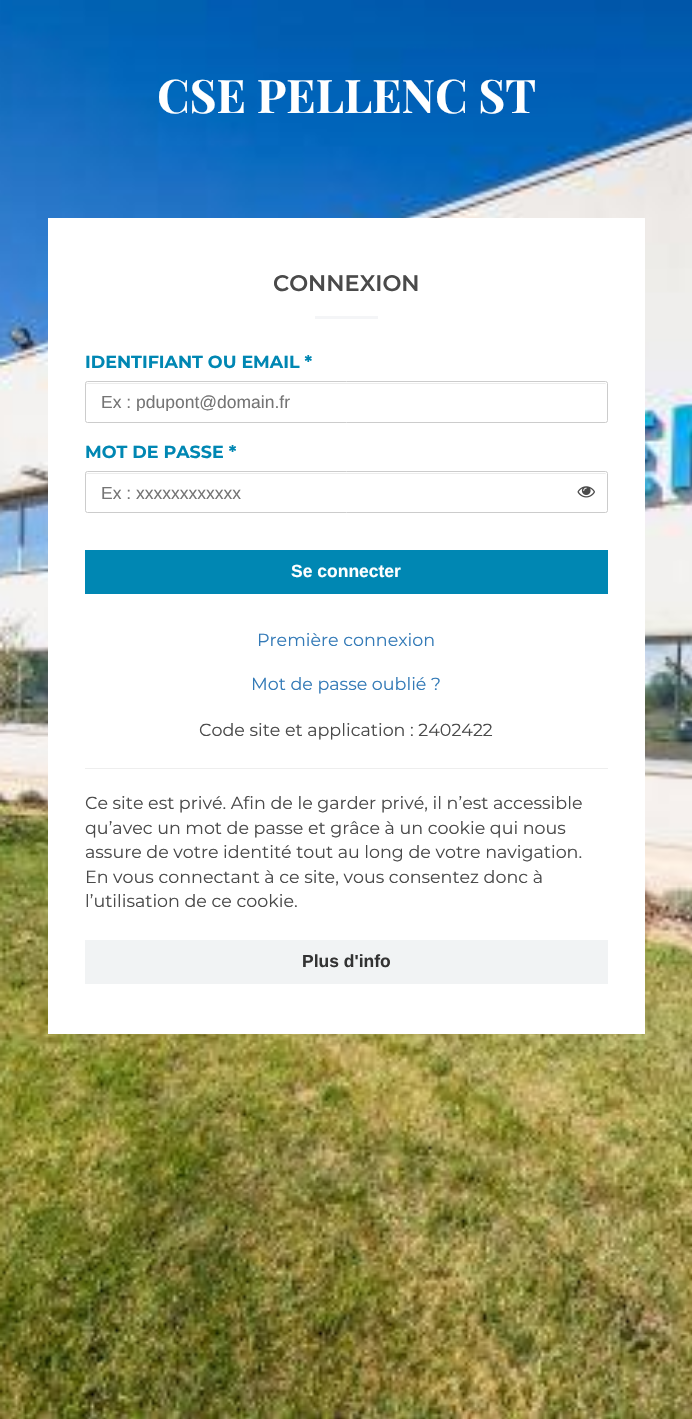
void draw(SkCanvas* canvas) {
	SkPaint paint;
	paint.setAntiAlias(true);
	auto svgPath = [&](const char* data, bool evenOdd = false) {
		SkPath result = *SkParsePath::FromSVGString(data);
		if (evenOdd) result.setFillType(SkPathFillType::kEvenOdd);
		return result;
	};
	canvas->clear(0xffffffff);
	canvas->drawImageRect(SkImages::DeferredFromEncodedData(SkData::MakeFromFileName("img1.png")), SkRect::MakeXYWH(0, 0, 692, 1419), SkSamplingOptions());
	SkFont f1(fontMgr->matchFamilyStyle("Playfair Display", SkFontStyle::Bold()), 46.25);
	f1.setSubpixel(true);
	paint.setColor(0xffffffff);
	canvas->drawString("CSE PELLENC ST", 157, 113, f1, paint);
	canvas->drawRect(SkRect::MakeXYWH(48, 218, 597, 816), paint);
	SkFont f2(fontMgr->matchFamilyStyle("Montserrat", SkFontStyle(600, SkFontStyle::kNormal_Width, SkFontStyle::kUpright_Slant)), 22.5);
	f2.setSubpixel(true);
	paint.setColor(0xff4a4a4a);
	canvas->drawString("CONNEXION", 273, 291, f2, paint);
	paint.setColor(0xfff4f5f7);
	canvas->drawRect(SkRect::MakeXYWH(315, 316, 63, 3), paint);
	SkFont f3(fontMgr->matchFamilyStyle("Montserrat", SkFontStyle::Bold()), 17.5);
	f3.setSubpixel(true);
	paint.setColor(0xff0087b3);
	canvas->drawString("IDENTIFIANT OU EMAIL *", 85, 368, f3, paint);
	paint.setColor(0xffececec);
	canvas->drawPath(svgPath("M88 384H605C606 384 606 384 606 385C606 384 606 383 605 383H87L86 384V385C86 384 87 384 88 384Z"), paint);
	paint.setStroke(true);
	paint.setStrokeWidth(1);
	paint.setColor(0xffcccccc);
	canvas->drawRoundRect(SkRect::MakeXYWH(85.5, 381.5, 522, 41), 2, 2, paint);
	canvas->save();
	canvas->clipRect(SkRect::MakeXYWH(101, 391, 490, 20));
	SkFont f4(fontMgr->matchFamilyStyle("Liberation Sans", SkFontStyle::Normal()), 17.5);
	f4.setSubpixel(true);
	paint.setStroke(false);
	paint.setColor(0xff757575);
	canvas->drawString("Ex : pdupont@domain.fr", 101, 408, f4, paint);
	canvas->restore();
	paint.setColor(0xff0087b3);
	canvas->drawString("MOT DE PASSE *", 85, 458, f3, paint);
	paint.setColor(0xffececec);
	canvas->drawPath(svgPath("M88 474H605C606 474 606 474 606 475C606 474 606 473 605 473H87L86 474V475C86 474 87 474 88 474Z"), paint);
	paint.setStroke(true);
	paint.setColor(0xffcccccc);
	canvas->drawRoundRect(SkRect::MakeXYWH(85.5, 471.5, 522, 41), 2, 2, paint);
	paint.setStroke(false);
	paint.setColor(0xff757575);
	canvas->drawString("Ex : xxxxxxxxxxxx", 101, 499, f4, paint);
	canvas->drawImageRect(SkImages::DeferredFromEncodedData(SkData::MakeFromFileName("img2.png")), SkRect::MakeXYWH(577, 486, 18, 12), SkSamplingOptions());
	paint.setColor(0xff0087b3);
	canvas->drawRect(SkRect::MakeXYWH(85, 550, 523, 44), paint);
	SkFont f5(fontMgr->matchFamilyStyle("Liberation Sans", SkFontStyle::Bold()), 17.5);
	f5.setSubpixel(true);
	paint.setColor(0xffffffff);
	canvas->drawString("Se connecter", 291, 577, f5, paint);
	SkFont f6(fontMgr->matchFamilyStyle("Montserrat", SkFontStyle::Normal()), 17.5);
	f6.setSubpixel(true);
	paint.setColor(0xff337ab7);
	canvas->drawString("Première connexion", 257, 646, f6, paint);
	canvas->drawString("Mot de passe oublié ?", 251, 690, f6, paint);
	paint.setColor(0xff4a4a4a);
	canvas->drawString("Code site et application : 2402422", 199, 736, f6, paint);
	paint.setColor(0xffeeeeee);
	canvas->drawRect(SkRect::MakeXYWH(85, 768, 523, 1), paint);
	paint.setColor(0xff4a4a4a);
	canvas->drawString("Ce site est privé. Afin de le garder privé, il n’est accessible", 85, 809, f6, paint);
	canvas->drawString("qu’avec un mot de passe et grâce à un cookie qui nous", 85, 834, f6, paint);
	canvas->drawString("assure de votre identité tout au long de votre navigation.", 85, 858, f6, paint);
	canvas->drawString("En vous connectant à ce site, vous consentez donc à", 85, 883, f6, paint);
	canvas->drawString("l’utilisation de ce cookie.", 85, 907, f6, paint);
	paint.setColor(0xfff1f3f4);
	canvas->drawRect(SkRect::MakeXYWH(85, 940, 523, 44), paint);
	paint.setColor(0xff333333);
	canvas->drawString("Plus d'info", 302, 967, f5, paint);
}
